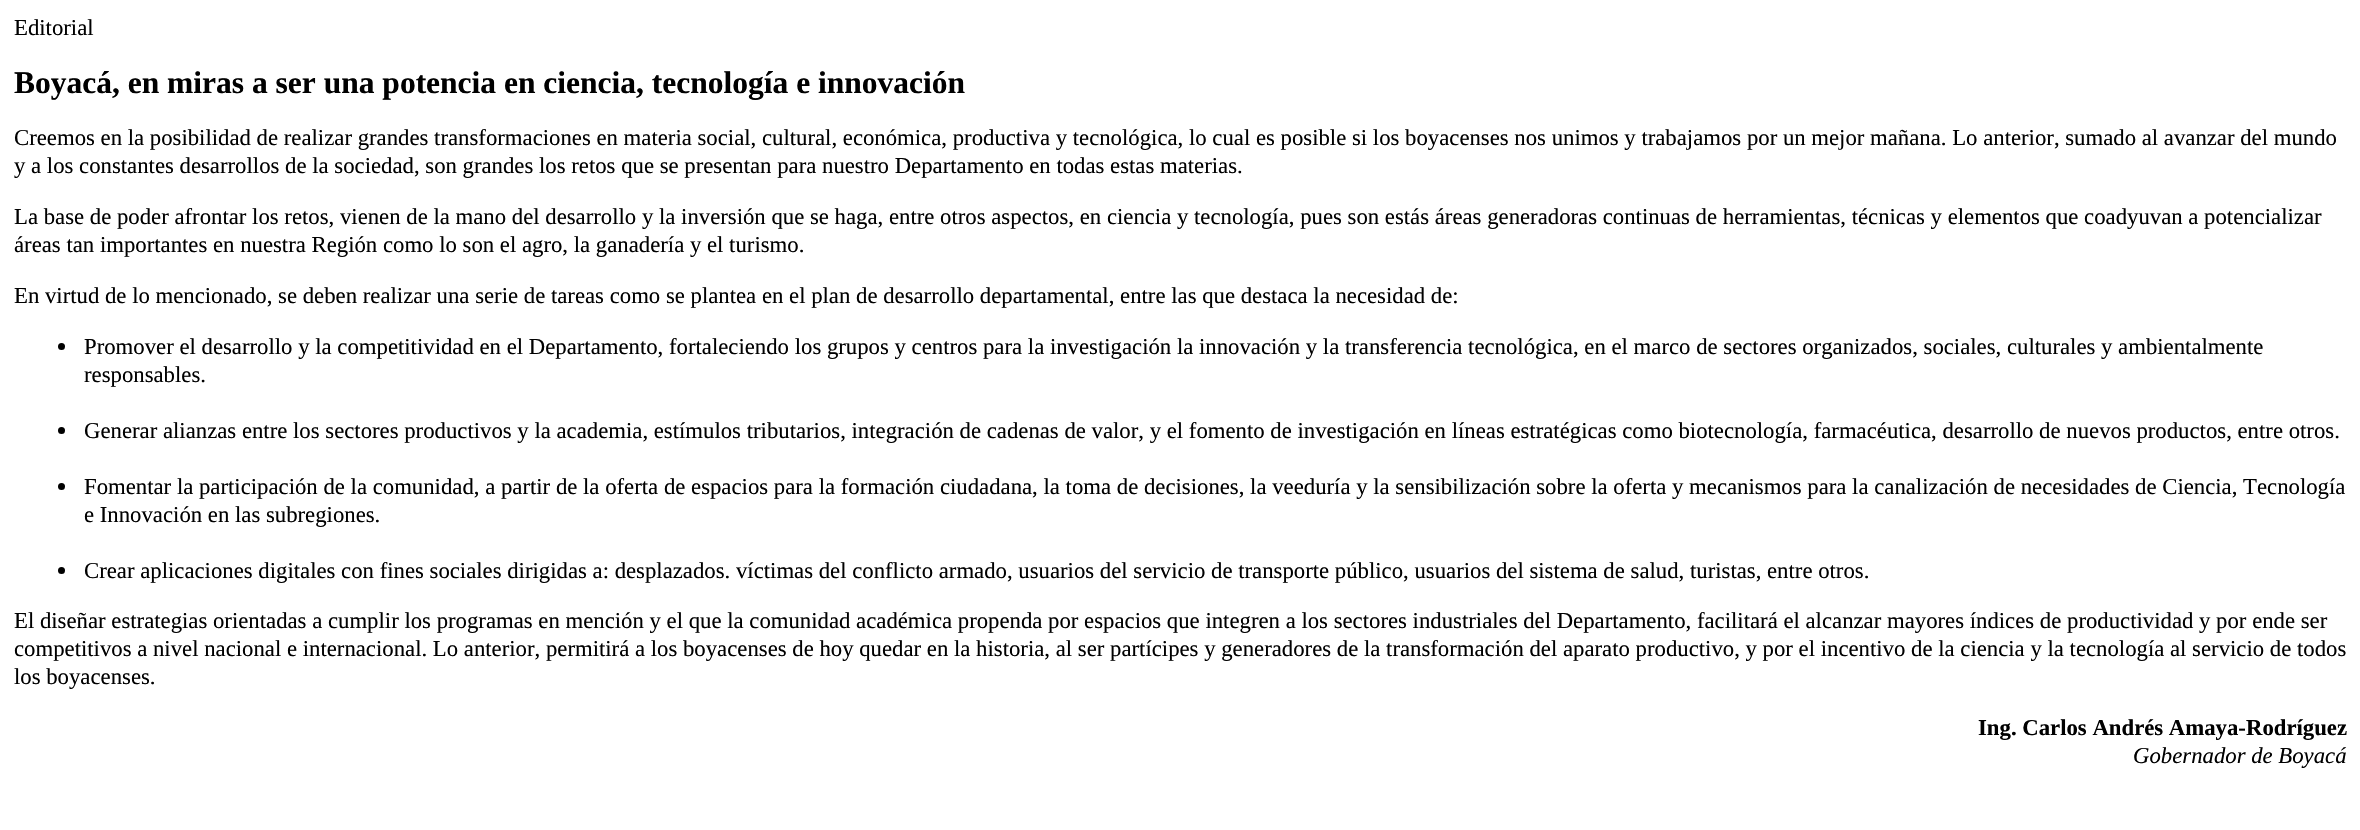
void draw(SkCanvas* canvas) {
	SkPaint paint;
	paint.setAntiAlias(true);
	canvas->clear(0xffffffff);
	SkFont f1(fontMgr->matchFamilyStyle("Liberation Serif", SkFontStyle::Normal()), 22.75);
	f1.setSubpixel(true);
	paint.setColor(0xff000000);
	canvas->drawString("Editorial", 14, 35, f1, paint);
	SkFont f2(fontMgr->matchFamilyStyle("Liberation Serif", SkFontStyle::Bold()), 31.5);
	f2.setSubpixel(true);
	canvas->drawString("Boyacá, en miras a ser una potencia en ciencia, tecnología e innovación", 14, 93, f2, paint);
	canvas->drawString("Creemos en la posibilidad de realizar grandes transformaciones en materia social, cultural, económica, productiva y tecnológica, lo cual es posible si los boyacenses nos unimos y trabajamos por un mejor mañana. Lo anterior, sumado al avanzar del mundo", 14, 145, f1, paint);
	canvas->drawString("y a los constantes desarrollos de la sociedad, son grandes los retos que se presentan para nuestro Departamento en todas estas materias.", 14, 173, f1, paint);
	canvas->drawString("La base de poder afrontar los retos, vienen de la mano del desarrollo y la inversión que se haga, entre otros aspectos, en ciencia y tecnología, pues son estás áreas generadoras continuas de herramientas, técnicas y elementos que coadyuvan a potencializar", 14, 224, f1, paint);
	canvas->drawString("áreas tan importantes en nuestra Región como lo son el agro, la ganadería y el turismo.", 14, 252, f1, paint);
	canvas->drawString("En virtud de lo mencionado, se deben realizar una serie de tareas como se plantea en el plan de desarrollo departamental, entre las que destaca la necesidad de:", 14, 303, f1, paint);
	canvas->drawCircle(61.5, 346.5, 3.5, paint);
	canvas->drawString("Promover el desarrollo y la competitividad en el Departamento, fortaleciendo los grupos y centros para la investigación la innovación y la transferencia tecnológica, en el marco de sectores organizados, sociales, culturales y ambientalmente", 84, 354, f1, paint);
	canvas->drawString("responsables.", 84, 382, f1, paint);
	canvas->drawCircle(61.5, 430.5, 3.5, paint);
	canvas->drawString("Generar alianzas entre los sectores productivos y la academia, estímulos tributarios, integración de cadenas de valor, y el fomento de investigación en líneas estratégicas como biotecnología, farmacéutica, desarrollo de nuevos productos, entre otros.", 84, 438, f1, paint);
	canvas->drawCircle(61.5, 486.5, 3.5, paint);
	canvas->drawString("Fomentar la participación de la comunidad, a partir de la oferta de espacios para la formación ciudadana, la toma de decisiones, la veeduría y la sensibilización sobre la oferta y mecanismos para la canalización de necesidades de Ciencia, Tecnología", 84, 494, f1, paint);
	canvas->drawString("e Innovación en las subregiones.", 84, 522, f1, paint);
	canvas->drawCircle(61.5, 570.5, 3.5, paint);
	canvas->drawString("Crear aplicaciones digitales con fines sociales dirigidas a: desplazados. víctimas del conflicto armado, usuarios del servicio de transporte público, usuarios del sistema de salud, turistas, entre otros.", 84, 578, f1, paint);
	canvas->drawString("El diseñar estrategias orientadas a cumplir los programas en mención y el que la comunidad académica propenda por espacios que integren a los sectores industriales del Departamento, facilitará el alcanzar mayores índices de productividad y por ende ser", 14, 628, f1, paint);
	canvas->drawString("competitivos a nivel nacional e internacional. Lo anterior, permitirá a los boyacenses de hoy quedar en la historia, al ser partícipes y generadores de la transformación del aparato productivo, y por el incentivo de la ciencia y la tecnología al servicio de todos", 14, 656, f1, paint);
	canvas->drawString("los boyacenses.", 14, 684, f1, paint);
	SkFont f3(fontMgr->matchFamilyStyle("Liberation Serif", SkFontStyle::Bold()), 22.75);
	f3.setSubpixel(true);
	canvas->drawString("Ing. Carlos Andrés Amaya-Rodríguez", 1978, 735, f3, paint);
	SkFont f4(fontMgr->matchFamilyStyle("Liberation Serif", SkFontStyle::Italic()), 22.75);
	f4.setSubpixel(true);
	canvas->drawString("Gobernador de Boyacá", 2133, 763, f4, paint);
}
